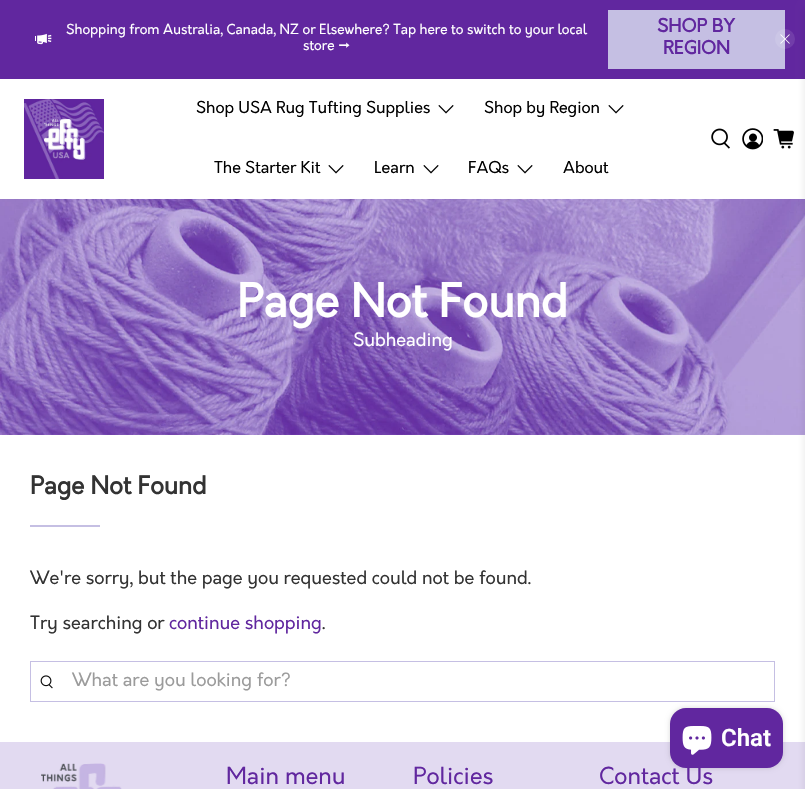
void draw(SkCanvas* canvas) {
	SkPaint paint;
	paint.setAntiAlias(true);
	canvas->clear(0xffffffff);
	paint.setColor(0xff61279f);
	canvas->drawRect(SkRect::MakeXYWH(0, 0, 805, 79), paint);
	canvas->drawImageRect(SkImages::DeferredFromEncodedData(SkData::MakeFromFileName("img1.png")), SkRect::MakeXYWH(35, 33, 17, 12), SkSamplingOptions());
	SkFont f1(fontMgr->matchFamilyStyle("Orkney", SkFontStyle::Normal()), 13.5);
	f1.setSubpixel(true);
	paint.setColor(0xffffffff);
	canvas->drawString("Shopping from Australia, Canada, NZ or Elsewhere? Tap here to switch to your local", 66, 34, f1, paint);
	canvas->drawString("store →", 303, 50, f1, paint);
	paint.setColor(0xffc5bfe3);
	canvas->drawRect(SkRect::MakeXYWH(608, 10, 177, 59), paint);
	SkFont f2(fontMgr->matchFamilyStyle("Orkney", SkFontStyle::Bold()), 18);
	f2.setSubpixel(true);
	paint.setColor(0xff61279f);
	canvas->drawString("SHOP BY", 657, 32, f2, paint);
	canvas->drawString("REGION", 663, 54, f2, paint);
	paint.setColor(0x1affffff);
	canvas->drawCircle(785, 39, 10, paint);
	canvas->drawImageRect(SkImages::DeferredFromEncodedData(SkData::MakeFromFileName("img2.png")), SkRect::MakeXYWH(780, 34, 10, 10), SkSamplingOptions());
	canvas->drawImageRect(SkImages::DeferredFromEncodedData(SkData::MakeFromFileName("img7.png")), SkRect::MakeXYWH(773, 129, 21, 20), SkSamplingOptions());
	canvas->drawImageRect(SkImages::DeferredFromEncodedData(SkData::MakeFromFileName("img8.png")), SkRect::MakeXYWH(0, 199, 805, 236), SkSamplingOptions());
	paint.setColor(0xffe2daf1);
	canvas->drawRect(SkRect::MakeXYWH(0, 742, 805, 47), paint);
	paint.setColor(0x1a0a0a0a);
	paint.setMaskFilter(SkMaskFilter::MakeBlur(kNormal_SkBlurStyle, 4));
	canvas->drawRect(SkRect::MakeXYWH(805, 8, 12, 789), paint);
	paint.setMaskFilter(nullptr);
	canvas->drawImageRect(SkImages::DeferredFromEncodedData(SkData::MakeFromFileName("img3.png")), SkRect::MakeXYWH(24, 99, 80, 80), SkSamplingOptions());
	SkFont f3(fontMgr->matchFamilyStyle("Orkney", SkFontStyle::Normal()), 16);
	f3.setSubpixel(true);
	paint.setColor(0xff000000);
	canvas->drawString("Shop USA Rug Tufting Supplies", 196, 113, f3, paint);
	canvas->drawImageRect(SkImages::DeferredFromEncodedData(SkData::MakeFromFileName("img4.png")), SkRect::MakeXYWH(438, 105, 16, 9), SkSamplingOptions());
	canvas->drawString("Shop by Region", 484, 113, f3, paint);
	canvas->drawImageRect(SkImages::DeferredFromEncodedData(SkData::MakeFromFileName("img4.png")), SkRect::MakeXYWH(608, 105, 16, 9), SkSamplingOptions());
	canvas->drawString("The Starter Kit", 214, 173, f3, paint);
	canvas->drawImageRect(SkImages::DeferredFromEncodedData(SkData::MakeFromFileName("img4.png")), SkRect::MakeXYWH(328, 165, 16, 9), SkSamplingOptions());
	canvas->drawString("Learn", 374, 173, f3, paint);
	canvas->drawImageRect(SkImages::DeferredFromEncodedData(SkData::MakeFromFileName("img4.png")), SkRect::MakeXYWH(423, 165, 16, 9), SkSamplingOptions());
	canvas->drawString("FAQs", 468, 173, f3, paint);
	canvas->drawImageRect(SkImages::DeferredFromEncodedData(SkData::MakeFromFileName("img4.png")), SkRect::MakeXYWH(517, 165, 16, 9), SkSamplingOptions());
	canvas->drawString("About", 563, 173, f3, paint);
	canvas->drawImageRect(SkImages::DeferredFromEncodedData(SkData::MakeFromFileName("img5.png")), SkRect::MakeXYWH(711, 128, 19, 21), SkSamplingOptions());
	canvas->drawImageRect(SkImages::DeferredFromEncodedData(SkData::MakeFromFileName("img6.png")), SkRect::MakeXYWH(742, 128, 21, 22), SkSamplingOptions());
	SkFont f4(fontMgr->matchFamilyStyle("Orkney", SkFontStyle::Bold()), 45);
	f4.setSubpixel(true);
	paint.setColor(0xffffffff);
	canvas->drawString("Page Not Found", 237, 317, f4, paint);
	SkFont f5(fontMgr->matchFamilyStyle("Orkney", SkFontStyle::Normal()), 18);
	f5.setSubpixel(true);
	canvas->drawString("Subheading", 353, 346, f5, paint);
	SkFont f6(fontMgr->matchFamilyStyle("Orkney", SkFontStyle::Bold()), 24);
	f6.setSubpixel(true);
	paint.setColor(0xff333333);
	canvas->drawString("Page Not Found", 30, 494, f6, paint);
	paint.setColor(0xffc5bfe3);
	canvas->drawRect(SkRect::MakeXYWH(30, 525, 70, 2), paint);
	paint.setColor(0xff333333);
	canvas->drawString("We're sorry, but the page you requested could not be found.", 30, 584, f5, paint);
	canvas->drawString("Try searching or", 30, 629, f5, paint);
	paint.setColor(0xff61279f);
	canvas->drawString("continue shopping", 169, 629, f5, paint);
	paint.setColor(0xff333333);
	canvas->drawString(".", 322, 629, f5, paint);
	paint.setStroke(true);
	paint.setStrokeWidth(1);
	paint.setColor(0xffc5bfe3);
	canvas->drawRect(SkRect::MakeXYWH(30.5, 661.5, 744, 40), paint);
	canvas->drawImageRect(SkImages::DeferredFromEncodedData(SkData::MakeFromFileName("img9.png")), SkRect::MakeXYWH(40, 675, 13, 14), SkSamplingOptions());
	paint.setStroke(false);
	paint.setColor(0xff9b9b9b);
	canvas->drawString("What are you looking for?", 72, 686, f5, paint);
	paint.setColor(0x26000000);
	paint.setMaskFilter(SkMaskFilter::MakeBlur(kNormal_SkBlurStyle, 2.5));
	canvas->drawRoundRect(SkRect::MakeXYWH(670, 708, 113, 60), 16, 16, paint);
	paint.setMaskFilter(nullptr);
	paint.setColor(0xff61279f);
	canvas->drawRoundRect(SkRect::MakeXYWH(670, 708, 113, 60), 16, 16, paint);
	canvas->drawImageRect(SkImages::DeferredFromEncodedData(SkData::MakeFromFileName("img10.png")), SkRect::MakeXYWH(682, 726, 30, 29), SkSamplingOptions());
	SkFont f7(fontMgr->matchFamilyStyle("Roboto", SkFontStyle(600, SkFontStyle::kNormal_Width, SkFontStyle::kUpright_Slant)), 24);
	f7.setSubpixel(true);
	paint.setColor(0xffffffff);
	canvas->drawString("Chat", 721, 746, f7, paint);
	canvas->drawImageRect(SkImages::DeferredFromEncodedData(SkData::MakeFromFileName("img11.png")), SkRect::MakeXYWH(41, 763, 81, 26), SkSamplingOptions());
	SkFont f8(fontMgr->matchFamilyStyle("Orkney", SkFontStyle::Normal()), 23);
	f8.setSubpixel(true);
	paint.setColor(0xff61279f);
	canvas->drawString("Main menu", 226, 784, f8, paint);
	canvas->drawString("Policies", 413, 784, f8, paint);
	canvas->drawString("Contact Us", 599, 784, f8, paint);
}
